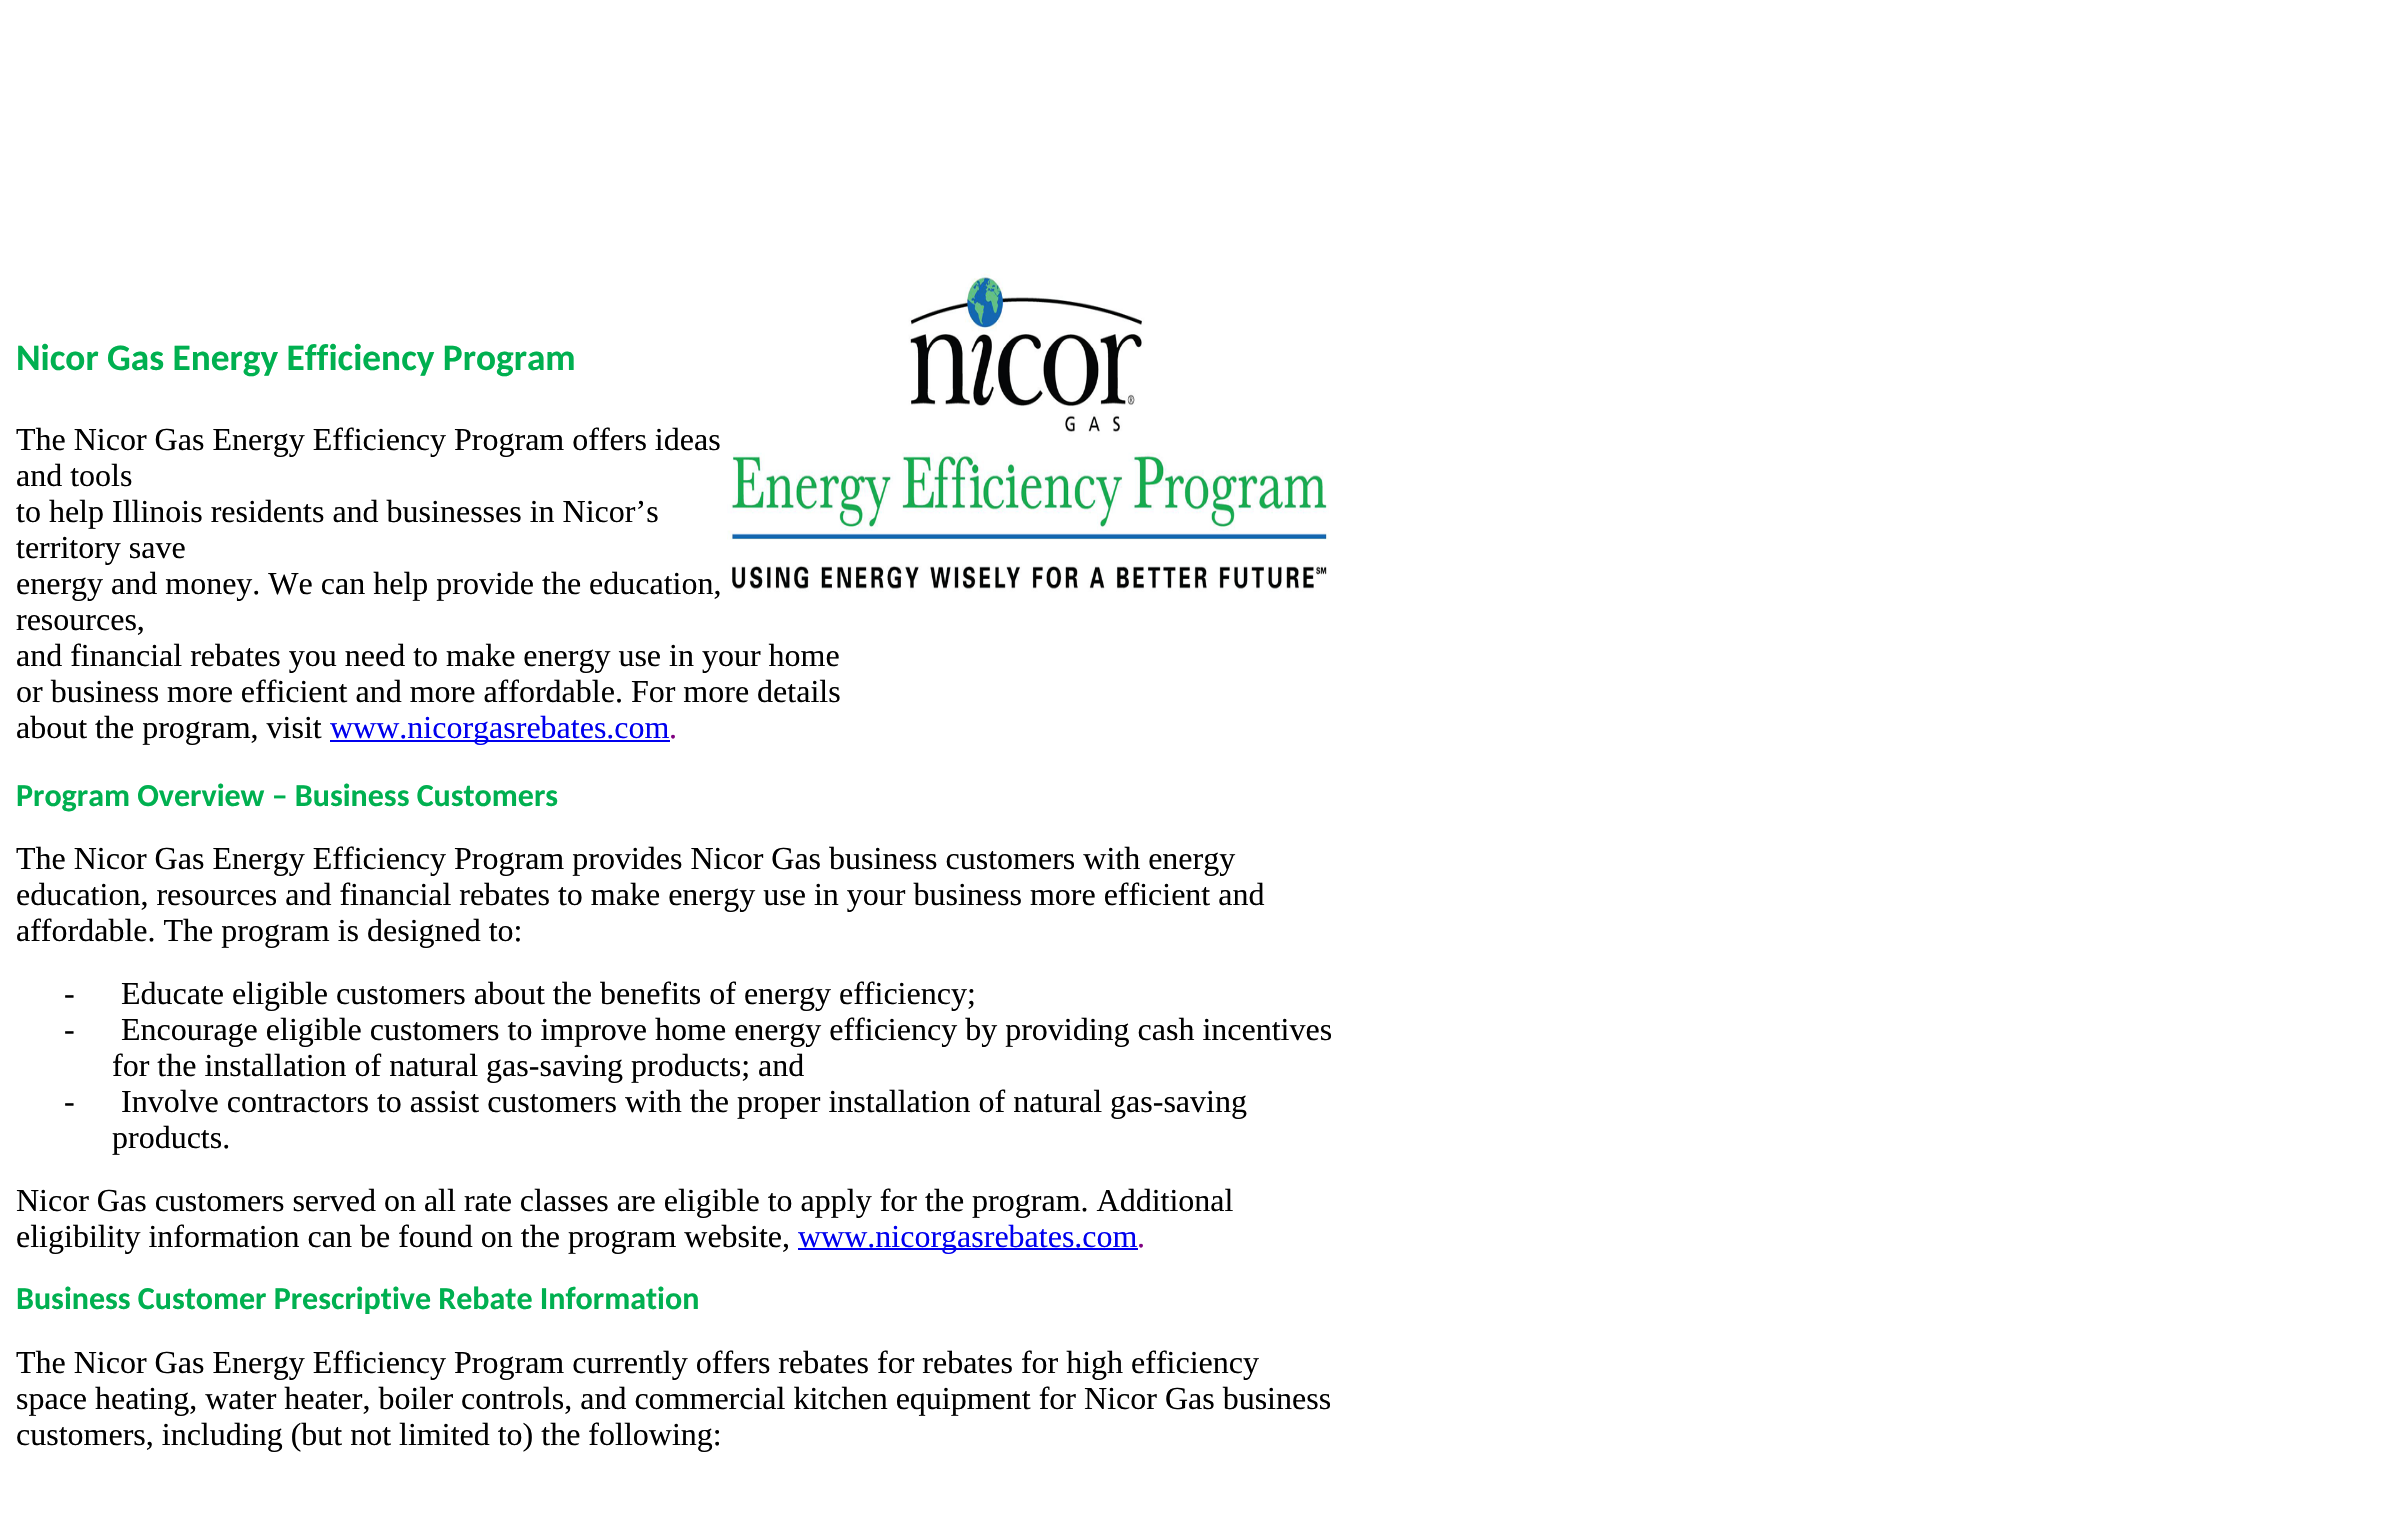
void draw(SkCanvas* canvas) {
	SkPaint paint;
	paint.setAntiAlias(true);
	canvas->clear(0xffffffff);
	SkFont f1(fontMgr->matchFamilyStyle("Carlito", SkFontStyle::Bold()), 37.3);
	f1.setSubpixel(true);
	paint.setColor(0xff00b050);
	canvas->drawString("Nicor Gas Energy Efficiency Program", 16, 370, f1, paint);
	SkFont f2(fontMgr->matchFamilyStyle("Liberation Serif", SkFontStyle::Normal()), 32);
	f2.setSubpixel(true);
	paint.setColor(0xff000000);
	canvas->drawString("The Nicor Gas Energy Efficiency Program offers ideas", 16, 450, f2, paint);
	canvas->drawString("and tools", 16, 486, f2, paint);
	canvas->drawString("to help Illinois residents and businesses in Nicor’s", 16, 522, f2, paint);
	canvas->drawString("territory save", 16, 558, f2, paint);
	canvas->drawString("energy and money. We can help provide the education,", 16, 594, f2, paint);
	canvas->drawString("resources,", 16, 630, f2, paint);
	canvas->drawString("and financial rebates you need to make energy use in your home", 16, 666, f2, paint);
	canvas->drawString("or business more efficient and more affordable. For more details", 16, 702, f2, paint);
	canvas->drawString("about the program, visit", 16, 738, f2, paint);
	paint.setColor(0xff0000ee);
	canvas->drawRect(SkRect::MakeXYWH(330, 740, 340, 2), paint);
	canvas->drawString("www.nicorgasrebates.com", 330, 738, f2, paint);
	paint.setColor(0xff800080);
	canvas->drawString(".", 669, 738, f2, paint);
	canvas->drawImageRect(SkImages::DeferredFromEncodedData(SkData::MakeFromFileName("img1.png")), SkRect::MakeXYWH(727, 270, 602, 322), SkSamplingOptions());
	SkFont f3(fontMgr->matchFamilyStyle("Carlito", SkFontStyle::Bold()), 32);
	f3.setSubpixel(true);
	paint.setColor(0xff00b050);
	canvas->drawString("Program Overview – Business Customers", 16, 806, f3, paint);
	paint.setColor(0xff000000);
	canvas->drawString("The Nicor Gas Energy Efficiency Program provides Nicor Gas business customers with energy", 16, 869, f2, paint);
	canvas->drawString("education, resources and financial rebates to make energy use in your business more efficient and", 16, 905, f2, paint);
	canvas->drawString("affordable. The program is designed to:", 16, 941, f2, paint);
	canvas->drawString("-", 64, 1004, f2, paint);
	canvas->drawString("Educate eligible customers about the benefits of energy efficiency;", 121, 1004, f2, paint);
	canvas->drawString("-", 64, 1040, f2, paint);
	canvas->drawString("Encourage eligible customers to improve home energy efficiency by providing cash incentives", 121, 1040, f2, paint);
	canvas->drawString("for the installation of natural gas-saving products; and", 112, 1076, f2, paint);
	canvas->drawString("-", 64, 1112, f2, paint);
	canvas->drawString("Involve contractors to assist customers with the proper installation of natural gas-saving", 121, 1112, f2, paint);
	canvas->drawString("products.", 112, 1148, f2, paint);
	canvas->drawString("Nicor Gas customers served on all rate classes are eligible to apply for the program. Additional", 16, 1211, f2, paint);
	canvas->drawString("eligibility information can be found on the program website,", 16, 1247, f2, paint);
	paint.setColor(0xff0000ee);
	canvas->drawRect(SkRect::MakeXYWH(798, 1248, 340, 2), paint);
	canvas->drawString("www.nicorgasrebates.com", 798, 1247, f2, paint);
	paint.setColor(0xff800080);
	canvas->drawString(".", 1137, 1247, f2, paint);
	paint.setColor(0xff00b050);
	canvas->drawString("Business Customer Prescriptive Rebate Information", 16, 1309, f3, paint);
	paint.setColor(0xff000000);
	canvas->drawString("The Nicor Gas Energy Efficiency Program currently offers rebates for rebates for high efficiency", 16, 1373, f2, paint);
	canvas->drawString("space heating, water heater, boiler controls, and commercial kitchen equipment for Nicor Gas business", 16, 1409, f2, paint);
	canvas->drawString("customers, including (but not limited to) the following:", 16, 1445, f2, paint);
}
